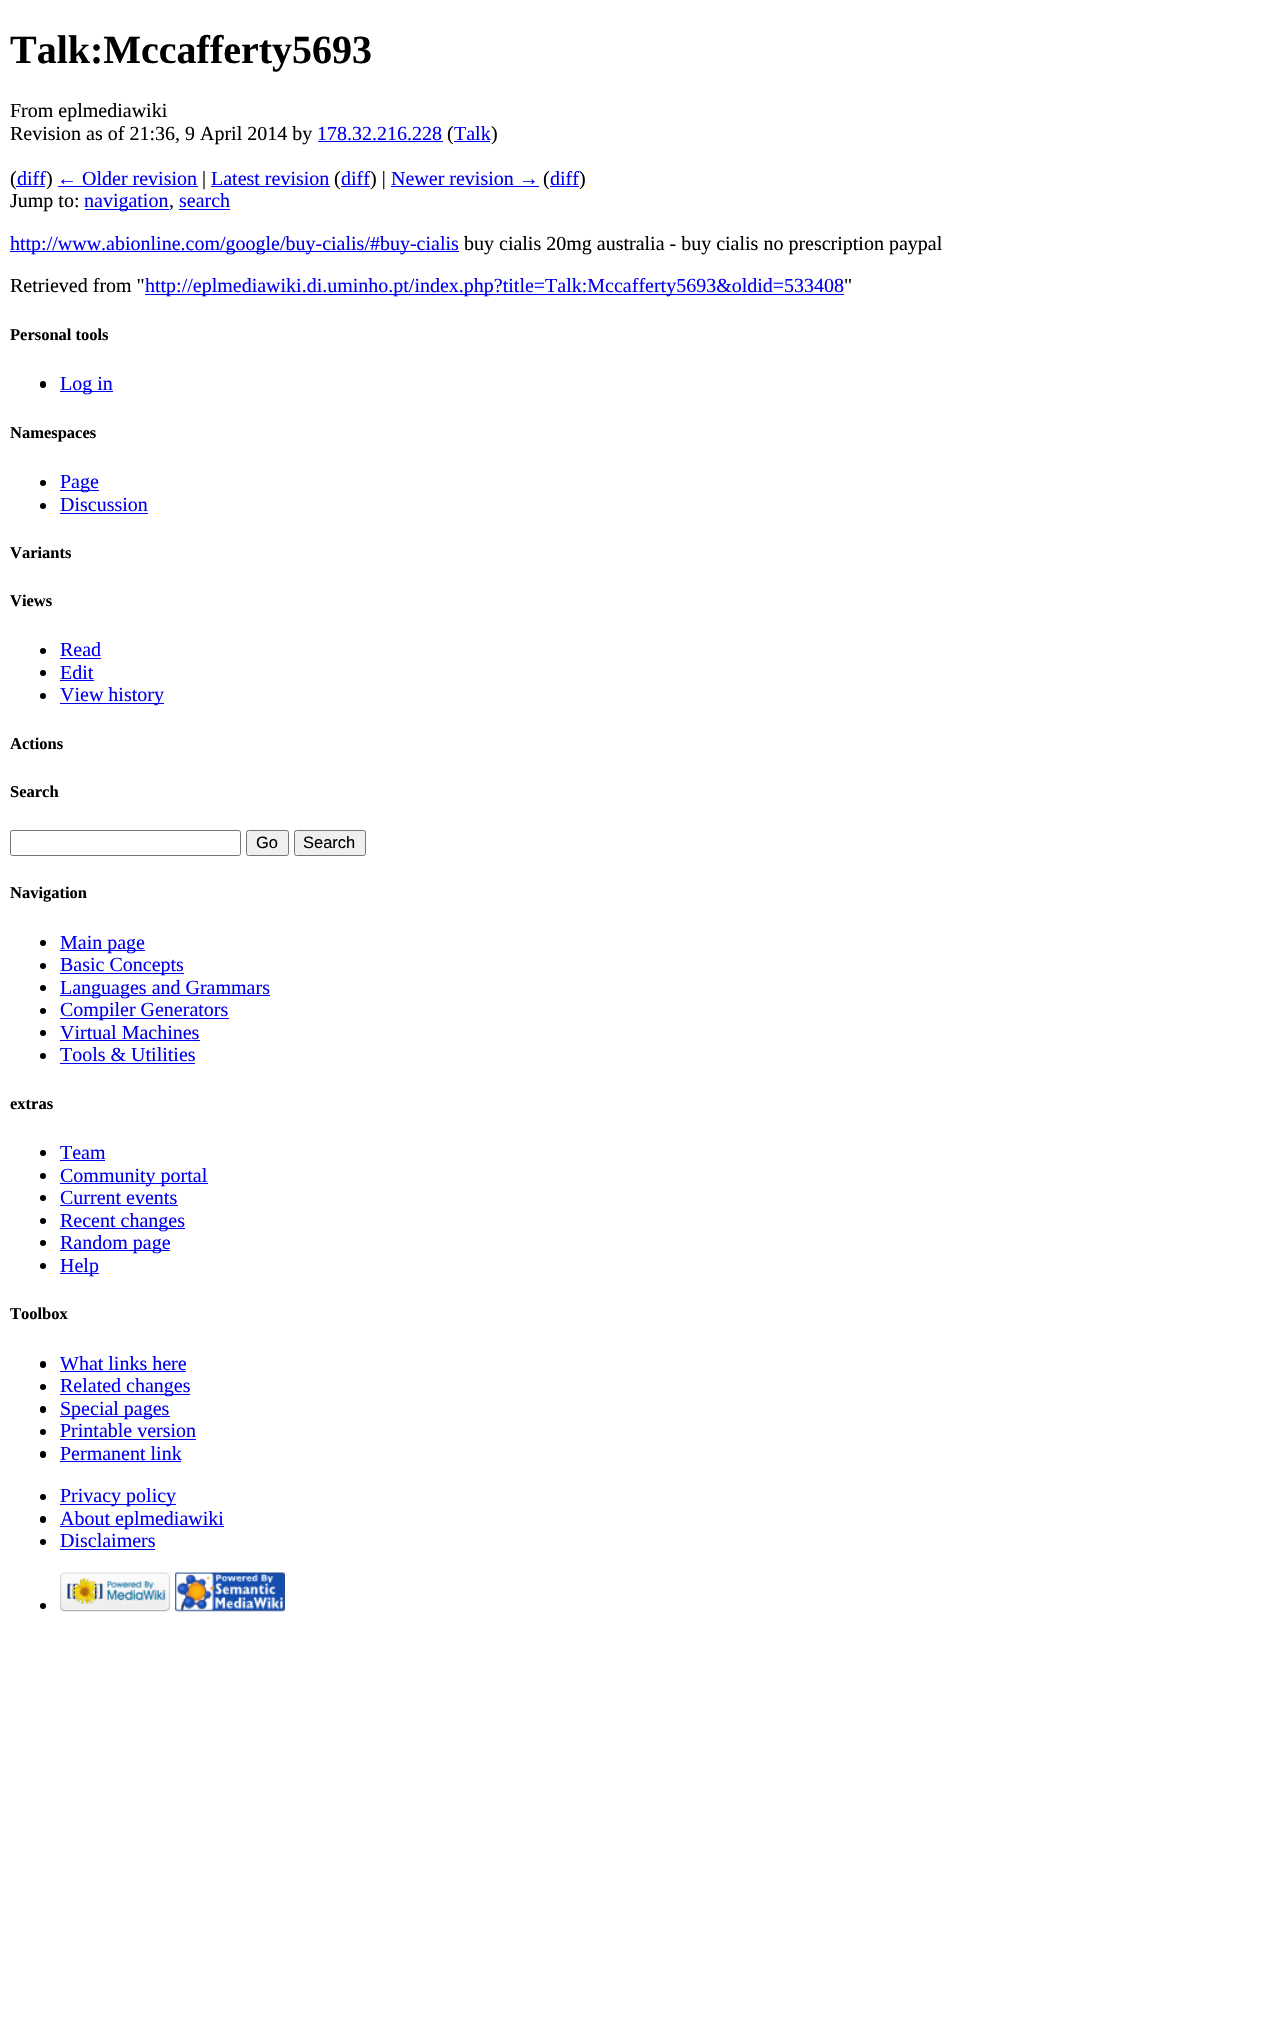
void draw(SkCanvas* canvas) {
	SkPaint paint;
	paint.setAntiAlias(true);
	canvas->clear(0xffffffff);
	SkFont f1(fontMgr->matchFamilyStyle("Liberation Serif", SkFontStyle::Bold()), 40);
	f1.setSubpixel(true);
	paint.setColor(0xff000000);
	canvas->drawString("Talk:Mccafferty5693", 10, 63, f1, paint);
	SkFont f2(fontMgr->matchFamilyStyle("Liberation Serif", SkFontStyle::Normal()), 20);
	f2.setSubpixel(true);
	canvas->drawString("From eplmediawiki", 10, 117, f2, paint);
	canvas->drawString("Revision as of 21:36, 9 April 2014 by", 10, 140, f2, paint);
	paint.setColor(0xff0000ee);
	canvas->drawString("178.32.216.228", 317, 140, f2, paint);
	canvas->drawRect(SkRect::MakeXYWH(318, 141, 125, 1), paint);
	paint.setColor(0xff000000);
	canvas->drawString("(", 447, 140, f2, paint);
	paint.setColor(0xff0000ee);
	canvas->drawRect(SkRect::MakeXYWH(454, 141, 36, 1), paint);
	canvas->drawString("Talk", 454, 140, f2, paint);
	paint.setColor(0xff000000);
	canvas->drawString(")", 491, 140, f2, paint);
	canvas->drawString("(", 10, 185, f2, paint);
	paint.setColor(0xff0000ee);
	canvas->drawString("diff", 17, 185, f2, paint);
	canvas->drawRect(SkRect::MakeXYWH(16, 186, 29, 1), paint);
	paint.setColor(0xff000000);
	canvas->drawString(")", 46, 185, f2, paint);
	paint.setColor(0xff0000ee);
	canvas->drawString("← Older revision", 57, 185, f2, paint);
	canvas->drawRect(SkRect::MakeXYWH(58, 186, 140, 1), paint);
	paint.setColor(0xff000000);
	canvas->drawString("|", 202, 185, f2, paint);
	paint.setColor(0xff0000ee);
	canvas->drawString("Latest revision", 211, 185, f2, paint);
	canvas->drawRect(SkRect::MakeXYWH(211, 186, 119, 1), paint);
	paint.setColor(0xff000000);
	canvas->drawString("(", 334, 185, f2, paint);
	paint.setColor(0xff0000ee);
	canvas->drawString("diff", 341, 185, f2, paint);
	canvas->drawRect(SkRect::MakeXYWH(341, 186, 29, 1), paint);
	paint.setColor(0xff000000);
	canvas->drawString(") |", 370, 185, f2, paint);
	paint.setColor(0xff0000ee);
	canvas->drawString("Newer revision →", 391, 185, f2, paint);
	canvas->drawRect(SkRect::MakeXYWH(391, 186, 148, 1), paint);
	paint.setColor(0xff000000);
	canvas->drawString("(", 543, 185, f2, paint);
	paint.setColor(0xff0000ee);
	canvas->drawString("diff", 550, 185, f2, paint);
	canvas->drawRect(SkRect::MakeXYWH(550, 186, 29, 1), paint);
	paint.setColor(0xff000000);
	canvas->drawString(")", 579, 185, f2, paint);
	canvas->drawString("Jump to:", 10, 207, f2, paint);
	paint.setColor(0xff0000ee);
	canvas->drawRect(SkRect::MakeXYWH(85, 209, 84, 1), paint);
	canvas->drawString("navigation", 84, 207, f2, paint);
	paint.setColor(0xff000000);
	canvas->drawString(",", 169, 207, f2, paint);
	paint.setColor(0xff0000ee);
	canvas->drawString("search", 179, 207, f2, paint);
	canvas->drawRect(SkRect::MakeXYWH(179, 209, 51, 1), paint);
	canvas->drawRect(SkRect::MakeXYWH(10, 251, 449, 1), paint);
	canvas->drawString("http://www.abionline.com/google/buy-cialis/#buy-cialis", 10, 250, f2, paint);
	paint.setColor(0xff000000);
	canvas->drawString("buy cialis 20mg australia - buy cialis no prescription paypal", 464, 250, f2, paint);
	canvas->drawString("Retrieved from \"", 10, 292, f2, paint);
	paint.setColor(0xff0000ee);
	canvas->drawRect(SkRect::MakeXYWH(145, 294, 699, 1), paint);
	canvas->drawString("http://eplmediawiki.di.uminho.pt/index.php?title=Talk:Mccafferty5693&oldid=533408", 145, 292, f2, paint);
	paint.setColor(0xff000000);
	canvas->drawString("\"", 844, 292, f2, paint);
	SkFont f3(fontMgr->matchFamilyStyle("Liberation Serif", SkFontStyle::Bold()), 16.5);
	f3.setSubpixel(true);
	canvas->drawString("Personal tools", 10, 340, f3, paint);
	canvas->drawRoundRect(SkRect::MakeXYWH(40, 381, 6, 7), 3, 3, paint);
	paint.setColor(0xff0000ee);
	canvas->drawRect(SkRect::MakeXYWH(60, 391, 53, 1), paint);
	canvas->drawString("Log in", 60, 390, f2, paint);
	paint.setColor(0xff000000);
	canvas->drawString("Namespaces", 10, 438, f3, paint);
	canvas->drawCircle(43, 483, 3, paint);
	paint.setColor(0xff0000ee);
	canvas->drawRect(SkRect::MakeXYWH(60, 490, 39, 1), paint);
	canvas->drawString("Page", 60, 488, f2, paint);
	paint.setColor(0xff000000);
	canvas->drawCircle(43, 506, 3, paint);
	paint.setColor(0xff0000ee);
	canvas->drawString("Discussion", 60, 511, f2, paint);
	canvas->drawRect(SkRect::MakeXYWH(60, 513, 88, 1), paint);
	paint.setColor(0xff000000);
	canvas->drawString("Variants", 10, 558, f3, paint);
	canvas->drawString("Views", 10, 606, f3, paint);
	canvas->drawCircle(43, 651, 3, paint);
	paint.setColor(0xff0000ee);
	canvas->drawString("Read", 60, 656, f2, paint);
	canvas->drawRect(SkRect::MakeXYWH(60, 658, 41, 1), paint);
	paint.setColor(0xff000000);
	canvas->drawCircle(43, 673, 3, paint);
	paint.setColor(0xff0000ee);
	canvas->drawString("Edit", 60, 679, f2, paint);
	canvas->drawRect(SkRect::MakeXYWH(60, 680, 34, 1), paint);
	paint.setColor(0xff000000);
	canvas->drawCircle(43, 696, 3, paint);
	paint.setColor(0xff0000ee);
	canvas->drawRect(SkRect::MakeXYWH(60, 703, 104, 1), paint);
	canvas->drawString("View history", 60, 701, f2, paint);
	paint.setColor(0xff000000);
	canvas->drawString("Actions", 10, 749, f3, paint);
	canvas->drawString("Search", 10, 797, f3, paint);
	paint.setStroke(true);
	paint.setStrokeWidth(1);
	paint.setColor(0xff767676);
	canvas->drawRoundRect(SkRect::MakeXYWH(10.5, 830.5, 230, 25), 2, 2, paint);
	paint.setStroke(false);
	paint.setColor(0xffefefef);
	canvas->drawRoundRect(SkRect::MakeXYWH(246.5, 830.5, 42, 25), 2, 2, paint);
	paint.setStroke(true);
	paint.setColor(0xff767676);
	canvas->drawRoundRect(SkRect::MakeXYWH(246.5, 830.5, 42, 25), 2, 2, paint);
	SkFont f4(fontMgr->matchFamilyStyle("Liberation Sans", SkFontStyle::Normal()), 16.5);
	f4.setSubpixel(true);
	paint.setStroke(false);
	paint.setColor(0xff000000);
	canvas->drawString("Go", 256, 848, f4, paint);
	paint.setColor(0xffefefef);
	canvas->drawRoundRect(SkRect::MakeXYWH(294.5, 830.5, 71, 25), 2, 2, paint);
	paint.setStroke(true);
	paint.setColor(0xff767676);
	canvas->drawRoundRect(SkRect::MakeXYWH(294.5, 830.5, 71, 25), 2, 2, paint);
	paint.setStroke(false);
	paint.setColor(0xff000000);
	canvas->drawString("Search", 303, 848, f4, paint);
	canvas->drawString("Navigation", 10, 898, f3, paint);
	canvas->drawCircle(43, 943, 3, paint);
	paint.setColor(0xff0000ee);
	canvas->drawRect(SkRect::MakeXYWH(60, 950, 85, 1), paint);
	canvas->drawString("Main page", 60, 949, f2, paint);
	paint.setColor(0xff000000);
	canvas->drawCircle(43, 966, 3, paint);
	paint.setColor(0xff0000ee);
	canvas->drawRect(SkRect::MakeXYWH(60, 973, 124, 1), paint);
	canvas->drawString("Basic Concepts", 60, 971, f2, paint);
	paint.setColor(0xff000000);
	canvas->drawCircle(43, 988, 3, paint);
	paint.setColor(0xff0000ee);
	canvas->drawRect(SkRect::MakeXYWH(60, 995, 210, 1), paint);
	canvas->drawString("Languages and Grammars", 60, 994, f2, paint);
	paint.setColor(0xff000000);
	canvas->drawCircle(43, 1011, 3, paint);
	paint.setColor(0xff0000ee);
	canvas->drawRect(SkRect::MakeXYWH(60, 1018, 169, 1), paint);
	canvas->drawString("Compiler Generators", 60, 1016, f2, paint);
	paint.setColor(0xff000000);
	canvas->drawCircle(43, 1033, 3, paint);
	paint.setColor(0xff0000ee);
	canvas->drawString("Virtual Machines", 60, 1039, f2, paint);
	canvas->drawRect(SkRect::MakeXYWH(60, 1040, 140, 1), paint);
	paint.setColor(0xff000000);
	canvas->drawCircle(43, 1056, 3, paint);
	paint.setColor(0xff0000ee);
	canvas->drawString("Tools & Utilities", 60, 1061, f2, paint);
	canvas->drawRect(SkRect::MakeXYWH(60, 1063, 135, 1), paint);
	paint.setColor(0xff000000);
	canvas->drawString("extras", 10, 1109, f3, paint);
	canvas->drawCircle(43, 1153, 3, paint);
	paint.setColor(0xff0000ee);
	canvas->drawString("Team", 60, 1159, f2, paint);
	canvas->drawRect(SkRect::MakeXYWH(60, 1160, 45, 1), paint);
	paint.setColor(0xff000000);
	canvas->drawCircle(43, 1176, 3, paint);
	paint.setColor(0xff0000ee);
	canvas->drawRect(SkRect::MakeXYWH(60, 1183, 148, 1), paint);
	canvas->drawString("Community portal", 60, 1182, f2, paint);
	paint.setColor(0xff000000);
	canvas->drawCircle(43, 1198, 3, paint);
	paint.setColor(0xff0000ee);
	canvas->drawString("Current events", 60, 1204, f2, paint);
	canvas->drawRect(SkRect::MakeXYWH(60, 1205, 118, 1), paint);
	paint.setColor(0xff000000);
	canvas->drawCircle(43, 1221, 3, paint);
	paint.setColor(0xff0000ee);
	canvas->drawRect(SkRect::MakeXYWH(60, 1228, 125, 1), paint);
	canvas->drawString("Recent changes", 60, 1227, f2, paint);
	paint.setColor(0xff000000);
	canvas->drawCircle(43, 1243, 3, paint);
	paint.setColor(0xff0000ee);
	canvas->drawRect(SkRect::MakeXYWH(60, 1250, 110, 1), paint);
	canvas->drawString("Random page", 60, 1249, f2, paint);
	paint.setColor(0xff000000);
	canvas->drawCircle(43, 1266, 3, paint);
	paint.setColor(0xff0000ee);
	canvas->drawRect(SkRect::MakeXYWH(60, 1273, 39, 1), paint);
	canvas->drawString("Help", 60, 1272, f2, paint);
	paint.setColor(0xff000000);
	canvas->drawString("Toolbox", 10, 1319, f3, paint);
	canvas->drawRoundRect(SkRect::MakeXYWH(40, 1361, 6, 7), 3, 3, paint);
	paint.setColor(0xff0000ee);
	canvas->drawString("What links here", 60, 1370, f2, paint);
	canvas->drawRect(SkRect::MakeXYWH(60, 1371, 126, 1), paint);
	paint.setColor(0xff000000);
	canvas->drawCircle(43, 1387, 3, paint);
	paint.setColor(0xff0000ee);
	canvas->drawRect(SkRect::MakeXYWH(60, 1394, 130, 1), paint);
	canvas->drawString("Related changes", 60, 1392, f2, paint);
	paint.setColor(0xff000000);
	canvas->drawRoundRect(SkRect::MakeXYWH(40, 1406, 6, 7), 3, 3, paint);
	paint.setColor(0xff0000ee);
	canvas->drawRect(SkRect::MakeXYWH(60, 1416, 110, 1), paint);
	canvas->drawString("Special pages", 60, 1415, f2, paint);
	paint.setColor(0xff000000);
	canvas->drawCircle(43, 1432, 3, paint);
	paint.setColor(0xff0000ee);
	canvas->drawString("Printable version", 60, 1437, f2, paint);
	canvas->drawRect(SkRect::MakeXYWH(60, 1439, 136, 1), paint);
	paint.setColor(0xff000000);
	canvas->drawRoundRect(SkRect::MakeXYWH(40, 1451, 6, 7), 3, 3, paint);
	paint.setColor(0xff0000ee);
	canvas->drawString("Permanent link", 60, 1460, f2, paint);
	canvas->drawRect(SkRect::MakeXYWH(60, 1461, 121, 1), paint);
	paint.setColor(0xff000000);
	canvas->drawCircle(43, 1497, 3, paint);
	paint.setColor(0xff0000ee);
	canvas->drawRect(SkRect::MakeXYWH(60, 1504, 116, 1), paint);
	canvas->drawString("Privacy policy", 60, 1502, f2, paint);
	paint.setColor(0xff000000);
	canvas->drawRoundRect(SkRect::MakeXYWH(40, 1516, 6, 7), 3, 3, paint);
	paint.setColor(0xff0000ee);
	canvas->drawRect(SkRect::MakeXYWH(60, 1526, 164, 1), paint);
	canvas->drawString("About eplmediawiki", 60, 1525, f2, paint);
	paint.setColor(0xff000000);
	canvas->drawCircle(43, 1542, 3, paint);
	paint.setColor(0xff0000ee);
	canvas->drawString("Disclaimers", 60, 1547, f2, paint);
	canvas->drawRect(SkRect::MakeXYWH(60, 1549, 95, 1), paint);
	paint.setColor(0xff000000);
	canvas->drawCircle(43, 1606, 3, paint);
	canvas->drawImageRect(SkImages::DeferredFromEncodedData(SkData::MakeFromFileName("img1.png")), SkRect::MakeXYWH(60, 1572, 110, 40), SkSamplingOptions());
	canvas->drawImageRect(SkImages::DeferredFromEncodedData(SkData::MakeFromFileName("img2.png")), SkRect::MakeXYWH(175, 1572, 110, 40), SkSamplingOptions());
}
